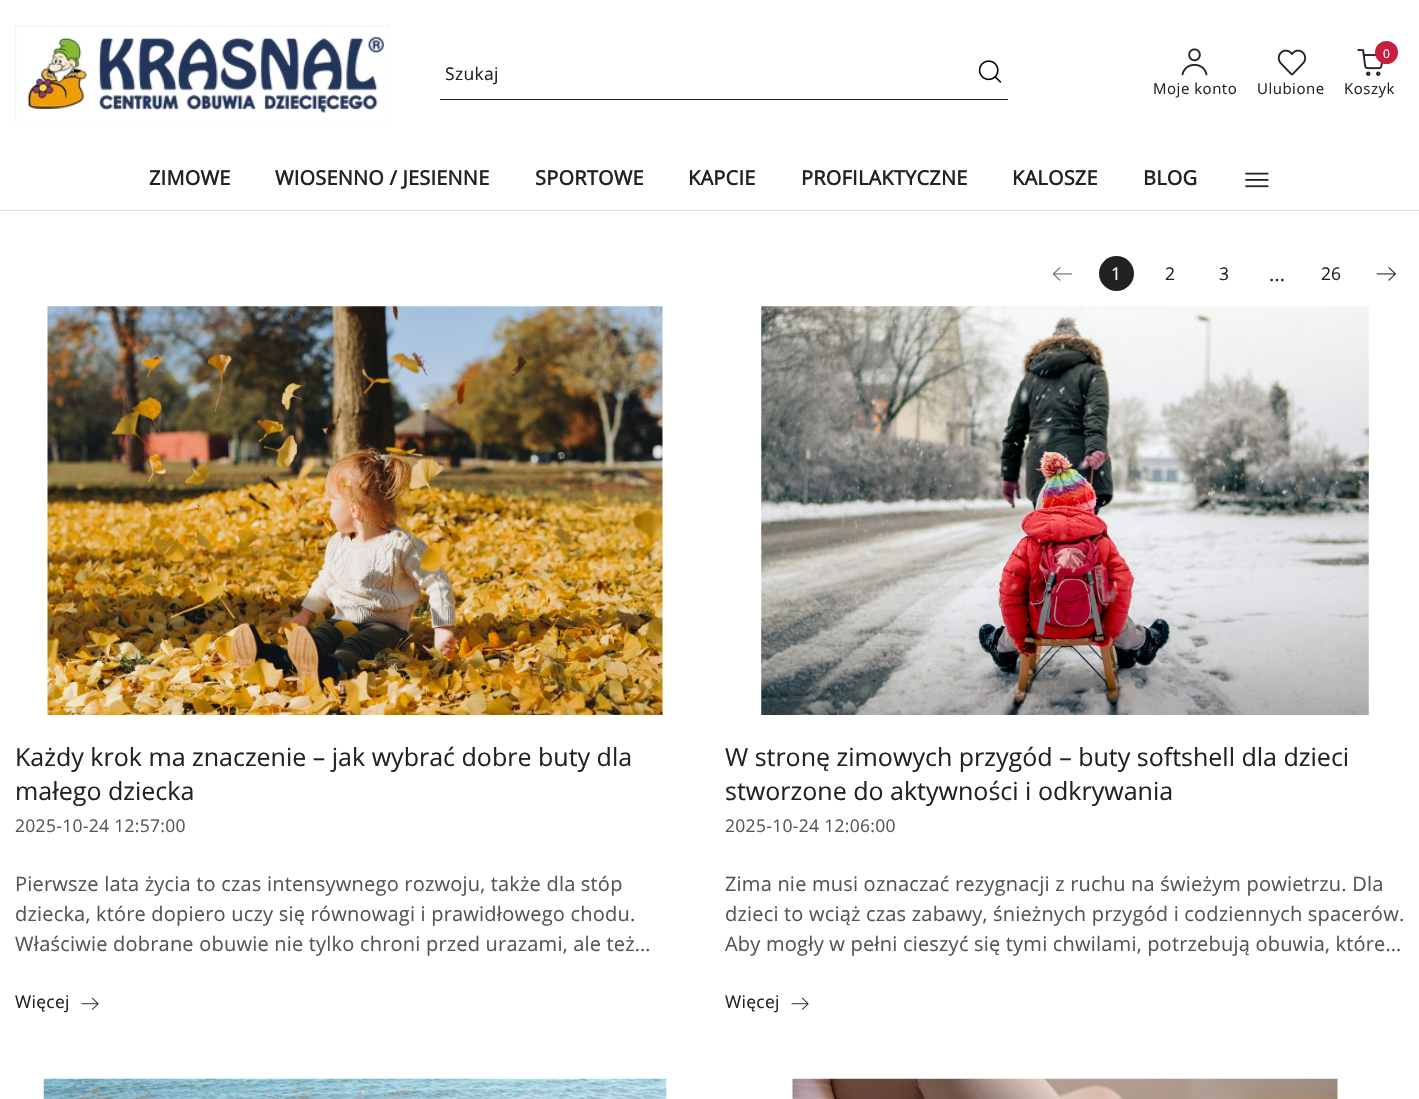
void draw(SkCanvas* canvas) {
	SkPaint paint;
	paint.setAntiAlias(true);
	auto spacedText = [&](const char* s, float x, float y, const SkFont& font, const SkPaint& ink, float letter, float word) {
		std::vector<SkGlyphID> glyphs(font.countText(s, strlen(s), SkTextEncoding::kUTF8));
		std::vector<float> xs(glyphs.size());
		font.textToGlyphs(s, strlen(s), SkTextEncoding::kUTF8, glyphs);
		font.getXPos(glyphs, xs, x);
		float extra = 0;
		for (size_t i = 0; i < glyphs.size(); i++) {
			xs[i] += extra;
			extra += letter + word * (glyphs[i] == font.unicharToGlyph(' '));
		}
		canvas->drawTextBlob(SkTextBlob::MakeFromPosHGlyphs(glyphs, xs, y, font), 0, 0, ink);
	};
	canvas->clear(0xffffffff);
	canvas->drawImageRect(SkImages::DeferredFromEncodedData(SkData::MakeFromFileName("img1.png")), SkRect::MakeXYWH(15, 25, 375, 98), SkSamplingOptions());
	paint.setColor(0xff222222);
	canvas->drawRect(SkRect::MakeXYWH(440, 99, 568, 1), paint);
	SkFont f1(fontMgr->matchFamilyStyle("Open Sans", SkFontStyle::Normal()), 17.5);
	f1.setSubpixel(true);
	spacedText("Szukaj", 445, 80, f1, paint, 0.3, 0);
	canvas->drawImageRect(SkImages::DeferredFromEncodedData(SkData::MakeFromFileName("img2.png")), SkRect::MakeXYWH(978, 60, 24, 23), SkSamplingOptions());
	canvas->drawImageRect(SkImages::DeferredFromEncodedData(SkData::MakeFromFileName("img3.png")), SkRect::MakeXYWH(1181, 48, 27, 28), SkSamplingOptions());
	SkFont f2(fontMgr->matchFamilyStyle("Open Sans", SkFontStyle::Normal()), 15);
	f2.setSubpixel(true);
	spacedText("Moje konto", 1153, 94, f2, paint, 0.5, 0);
	canvas->drawImageRect(SkImages::DeferredFromEncodedData(SkData::MakeFromFileName("img4.png")), SkRect::MakeXYWH(1277, 49, 30, 27), SkSamplingOptions());
	spacedText("Ulubione", 1257, 94, f2, paint, 0.5, 0);
	canvas->drawImageRect(SkImages::DeferredFromEncodedData(SkData::MakeFromFileName("img5.png")), SkRect::MakeXYWH(1357, 49, 26, 27), SkSamplingOptions());
	paint.setColor(0xffc5203d);
	canvas->drawCircle(1386.5, 52.5, 11.5, paint);
	SkFont f3(fontMgr->matchFamilyStyle("Open Sans", SkFontStyle::Normal()), 12);
	f3.setSubpixel(true);
	paint.setColor(0xffffffff);
	canvas->drawString("0", 1383, 58, f3, paint);
	paint.setColor(0xff222222);
	spacedText("Koszyk", 1344, 94, f2, paint, 0.5, 0);
	paint.setColor(0xffdddddd);
	canvas->drawRect(SkRect::MakeXYWH(0, 210, 1419, 1), paint);
	SkFont f4(fontMgr->matchFamilyStyle("Open Sans", SkFontStyle::Bold()), 20);
	f4.setSubpixel(true);
	paint.setColor(0xff222222);
	spacedText("ZIMOWE", 149, 185, f4, paint, 0.2, 0);
	spacedText("WIOSENNO / JESIENNE", 275, 185, f4, paint, 0.2, 0);
	spacedText("SPORTOWE", 535, 185, f4, paint, 0.2, 0);
	spacedText("KAPCIE", 688, 185, f4, paint, 0.2, 0);
	spacedText("PROFILAKTYCZNE", 801, 185, f4, paint, 0.2, 0);
	spacedText("KALOSZE", 1012, 185, f4, paint, 0.2, 0);
	spacedText("BLOG", 1143, 185, f4, paint, 0.2, 0);
	canvas->drawImageRect(SkImages::DeferredFromEncodedData(SkData::MakeFromFileName("img6.png")), SkRect::MakeXYWH(1245, 172, 24, 16), SkSamplingOptions());
	canvas->drawImageRect(SkImages::DeferredFromEncodedData(SkData::MakeFromFileName("img7.png")), SkRect::MakeXYWH(1052, 267, 21, 14), SkSamplingOptions());
	canvas->drawCircle(1116.5, 273.5, 17.5, paint);
	paint.setColor(0xffffffff);
	canvas->drawString("1", 1111, 280, f1, paint);
	paint.setColor(0xff222222);
	canvas->drawString("2", 1165, 280, f1, paint);
	canvas->drawString("3", 1219, 280, f1, paint);
	SkFont f5(fontMgr->matchFamilyStyle("Open Sans", SkFontStyle::Normal()), 20);
	f5.setSubpixel(true);
	canvas->drawString("...", 1269, 281, f5, paint);
	canvas->drawString("26", 1321, 280, f1, paint);
	canvas->drawImageRect(SkImages::DeferredFromEncodedData(SkData::MakeFromFileName("img8.png")), SkRect::MakeXYWH(1376, 267, 20, 14), SkSamplingOptions());
	canvas->drawImageRect(SkImages::DeferredFromEncodedData(SkData::MakeFromFileName("img9.png")), SkRect::MakeXYWH(47, 306, 616, 409), SkSamplingOptions());
	SkFont f6(fontMgr->matchFamilyStyle("Open Sans", SkFontStyle::Normal()), 25);
	f6.setSubpixel(true);
	canvas->drawString("Każdy krok ma znaczenie – jak wybrać dobre buty dla", 15, 766, f6, paint);
	canvas->drawString("małego dziecka", 15, 800, f6, paint);
	paint.setColor(0xff555555);
	spacedText("2025-10-24 12:57:00", 15, 832, f1, paint, 0.3, 0);
	spacedText("Pierwsze lata życia to czas intensywnego rozwoju, także dla stóp", 15, 891, f5, paint, 0.2, 0);
	spacedText("dziecka, które dopiero uczy się równowagi i prawidłowego chodu.", 15, 921, f5, paint, 0.2, 0);
	spacedText("Właściwie dobrane obuwie nie tylko chroni przed urazami, ale też…", 15, 951, f5, paint, 0.2, 0);
	paint.setColor(0xff222222);
	spacedText("Więcej", 15, 1008, f1, paint, 0.3, 0);
	canvas->drawImageRect(SkImages::DeferredFromEncodedData(SkData::MakeFromFileName("img10.png")), SkRect::MakeXYWH(81, 997, 18, 13), SkSamplingOptions());
	canvas->drawImageRect(SkImages::DeferredFromEncodedData(SkData::MakeFromFileName("img11.png")), SkRect::MakeXYWH(761, 306, 608, 409), SkSamplingOptions());
	canvas->drawString("W stronę zimowych przygód – buty softshell dla dzieci", 725, 766, f6, paint);
	canvas->drawString("stworzone do aktywności i odkrywania", 725, 800, f6, paint);
	paint.setColor(0xff555555);
	spacedText("2025-10-24 12:06:00", 725, 832, f1, paint, 0.3, 0);
	spacedText("Zima nie musi oznaczać rezygnacji z ruchu na świeżym powietrzu. Dla", 725, 891, f5, paint, 0.2, 0);
	spacedText("dzieci to wciąż czas zabawy, śnieżnych przygód i codziennych spacerów.", 725, 921, f5, paint, 0.2, 0);
	spacedText("Aby mogły w pełni cieszyć się tymi chwilami, potrzebują obuwia, które…", 725, 951, f5, paint, 0.2, 0);
	paint.setColor(0xff222222);
	spacedText("Więcej", 725, 1008, f1, paint, 0.3, 0);
	canvas->drawImageRect(SkImages::DeferredFromEncodedData(SkData::MakeFromFileName("img10.png")), SkRect::MakeXYWH(791, 997, 18, 13), SkSamplingOptions());
	canvas->drawImageRect(SkImages::DeferredFromEncodedData(SkData::MakeFromFileName("img12.png")), SkRect::MakeXYWH(43, 1078, 624, 21), SkSamplingOptions());
	canvas->drawImageRect(SkImages::DeferredFromEncodedData(SkData::MakeFromFileName("img13.png")), SkRect::MakeXYWH(792, 1078, 546, 21), SkSamplingOptions());
}
